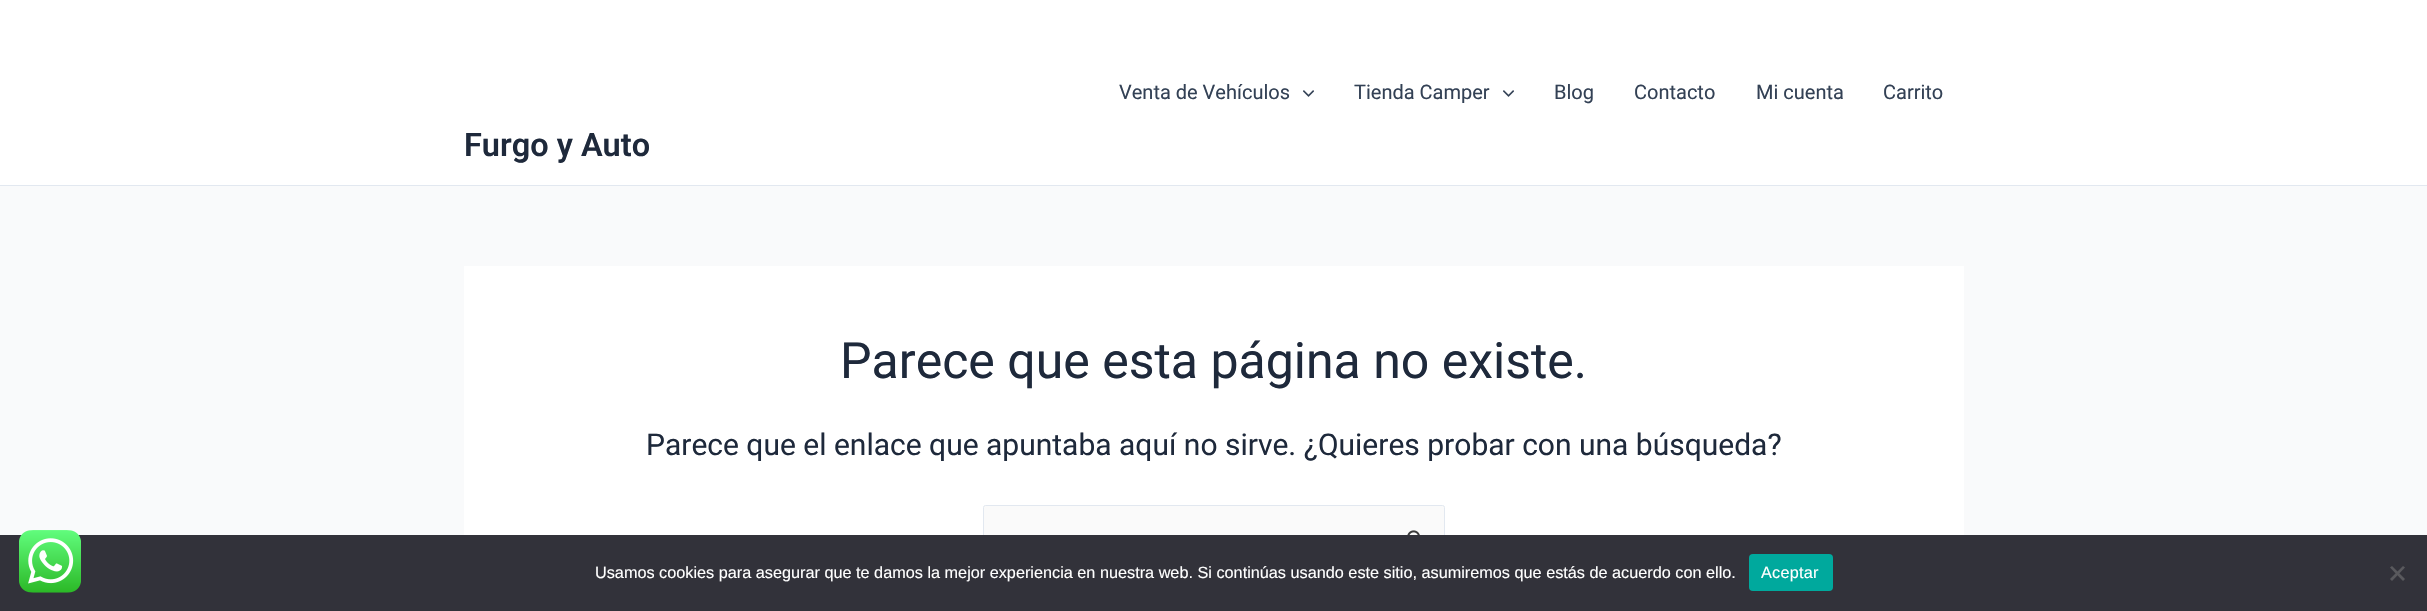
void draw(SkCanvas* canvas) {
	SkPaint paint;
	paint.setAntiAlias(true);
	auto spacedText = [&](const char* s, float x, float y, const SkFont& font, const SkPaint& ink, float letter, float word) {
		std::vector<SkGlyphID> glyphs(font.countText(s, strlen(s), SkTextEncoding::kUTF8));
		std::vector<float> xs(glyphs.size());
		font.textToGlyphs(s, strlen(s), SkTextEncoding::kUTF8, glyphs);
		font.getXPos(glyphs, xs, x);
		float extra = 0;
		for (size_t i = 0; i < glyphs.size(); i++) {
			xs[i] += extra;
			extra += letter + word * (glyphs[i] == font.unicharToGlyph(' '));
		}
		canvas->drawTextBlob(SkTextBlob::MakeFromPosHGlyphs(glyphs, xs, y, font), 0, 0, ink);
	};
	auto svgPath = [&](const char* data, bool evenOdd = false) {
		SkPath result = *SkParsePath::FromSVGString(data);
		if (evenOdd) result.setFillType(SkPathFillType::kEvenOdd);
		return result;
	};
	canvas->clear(0xfff9fafb);
	paint.setColor(0xffffffff);
	canvas->drawRect(SkRect::MakeXYWH(0, 0, 2427, 185), paint);
	paint.setColor(0xffe2e8f0);
	canvas->drawRect(SkRect::MakeXYWH(0, 185, 2427, 1), paint);
	SkFont f1(fontMgr->matchFamilyStyle("Roboto", SkFontStyle::Normal()), 20);
	f1.setSubpixel(true);
	paint.setColor(0xff334155);
	canvas->drawString("Venta de Vehículos", 1119, 99, f1, paint);
	canvas->drawImageRect(SkImages::DeferredFromEncodedData(SkData::MakeFromFileName("img1.png")), SkRect::MakeXYWH(1303, 90, 11, 7), SkSamplingOptions());
	canvas->drawString("Tienda Camper", 1354, 99, f1, paint);
	canvas->drawImageRect(SkImages::DeferredFromEncodedData(SkData::MakeFromFileName("img1.png")), SkRect::MakeXYWH(1503, 90, 11, 7), SkSamplingOptions());
	canvas->drawString("Blog", 1554, 99, f1, paint);
	canvas->drawString("Contacto", 1634, 99, f1, paint);
	canvas->drawString("Mi cuenta", 1756, 99, f1, paint);
	canvas->drawString("Carrito", 1883, 99, f1, paint);
	SkFont f2(fontMgr->matchFamilyStyle("Roboto", SkFontStyle(600, SkFontStyle::kNormal_Width, SkFontStyle::kUpright_Slant)), 32.5);
	f2.setSubpixel(true);
	paint.setColor(0xff1e293b);
	canvas->drawString("Furgo y Auto", 464, 156, f2, paint);
	paint.setColor(0xffffffff);
	canvas->drawRect(SkRect::MakeXYWH(464, 266, 1500, 269), paint);
	SkFont f3(fontMgr->matchFamilyStyle("Roboto", SkFontStyle::Normal()), 50);
	f3.setSubpixel(true);
	paint.setColor(0xff1e293b);
	canvas->drawString("Parece que esta página no existe.", 840, 378, f3, paint);
	SkFont f4(fontMgr->matchFamilyStyle("Roboto", SkFontStyle::Normal()), 30);
	f4.setSubpixel(true);
	canvas->drawString("Parece que el enlace que apuntaba aquí no sirve. ¿Quieres probar con una búsqueda?", 646, 455, f4, paint);
	paint.setColor(0xfffafafa);
	canvas->drawRoundRect(SkRect::MakeXYWH(983.5, 505.5, 461, 65), 2, 2, paint);
	paint.setStroke(true);
	paint.setStrokeWidth(1);
	paint.setColor(0xffe2e8f0);
	canvas->drawRoundRect(SkRect::MakeXYWH(983.5, 505.5, 461, 65), 2, 2, paint);
	canvas->drawImageRect(SkImages::DeferredFromEncodedData(SkData::MakeFromFileName("img2.png")), SkRect::MakeXYWH(1407, 530, 13, 5), SkSamplingOptions());
	paint.setStroke(false);
	paint.setColor(0xff32323a);
	canvas->drawRect(SkRect::MakeXYWH(0, 535, 2427, 76), paint);
	canvas->drawImageRect(SkImages::DeferredFromEncodedData(SkData::MakeFromFileName("img3.png")), SkRect::MakeXYWH(19, 530, 62, 63), SkSamplingOptions());
	SkFont f5(fontMgr->matchFamilyStyle("Liberation Sans", SkFontStyle::Normal()), 16.25);
	f5.setSubpixel(true);
	paint.setColor(0xffffffff);
	canvas->drawString("Usamos cookies para asegurar que te damos la mejor experiencia en nuestra web. Si continúas usando este sitio, asumiremos que estás de acuerdo con ello.", 595, 578, f5, paint);
	paint.setColor(0xff00a99d);
	canvas->drawRoundRect(SkRect::MakeXYWH(1749, 554, 84, 37), 4, 4, paint);
	paint.setColor(0xffffffff);
	spacedText("Aceptar", 1761, 578, f5, paint, 0.25, 0);
	paint.setColor(0xff59595d);
	canvas->drawPath(svgPath("M2403 566L2405 567.5L2392 581L2390 579Z"), paint);
	canvas->drawPath(svgPath("M2390 567.5L2392 566L2405 579L2403 581Z"), paint);
}
